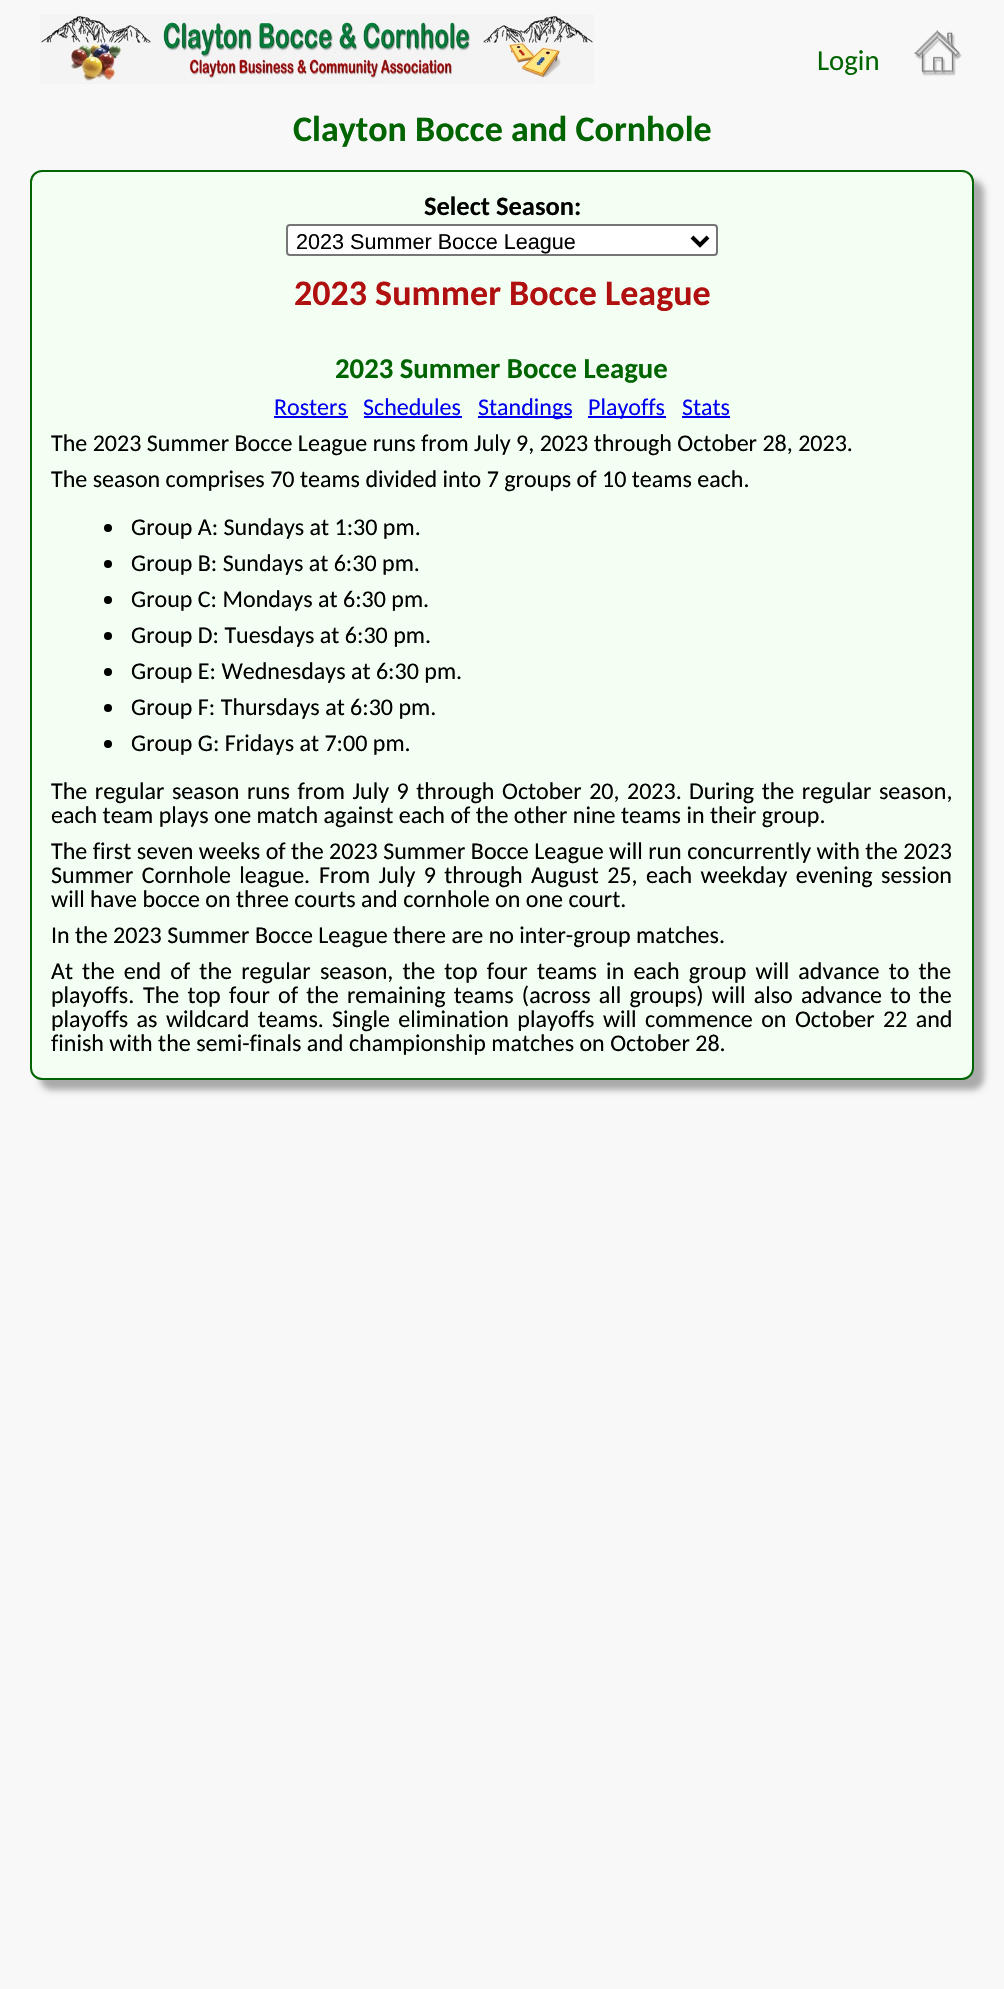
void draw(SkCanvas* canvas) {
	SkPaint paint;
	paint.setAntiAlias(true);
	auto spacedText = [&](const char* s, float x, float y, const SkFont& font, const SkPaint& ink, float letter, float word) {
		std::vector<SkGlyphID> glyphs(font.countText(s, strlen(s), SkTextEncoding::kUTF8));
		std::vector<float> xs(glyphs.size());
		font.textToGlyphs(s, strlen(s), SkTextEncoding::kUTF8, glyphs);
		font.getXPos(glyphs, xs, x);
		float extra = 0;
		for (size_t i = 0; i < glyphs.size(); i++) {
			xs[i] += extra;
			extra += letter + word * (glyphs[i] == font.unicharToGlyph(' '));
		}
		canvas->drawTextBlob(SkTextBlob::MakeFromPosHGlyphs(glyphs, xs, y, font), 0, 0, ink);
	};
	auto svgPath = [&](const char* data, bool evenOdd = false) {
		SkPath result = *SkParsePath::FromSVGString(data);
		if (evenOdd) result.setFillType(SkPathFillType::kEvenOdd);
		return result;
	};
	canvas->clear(0xfff8f8f8);
	canvas->drawImageRect(SkImages::DeferredFromEncodedData(SkData::MakeFromFileName("img1.png")), SkRect::MakeXYWH(40, 14, 554, 70), SkSamplingOptions());
	SkFont f1(fontMgr->matchFamilyStyle("Carlito", SkFontStyle::Normal()), 28.75);
	f1.setSubpixel(true);
	paint.setColor(0xff006400);
	canvas->drawString("Login", 817, 70, f1, paint);
	canvas->drawImageRect(SkImages::DeferredFromEncodedData(SkData::MakeFromFileName("img2.png")), SkRect::MakeXYWH(914, 30, 48, 46), SkSamplingOptions());
	SkFont f2(fontMgr->matchFamilyStyle("Carlito", SkFontStyle::Bold()), 36);
	f2.setSubpixel(true);
	canvas->drawString("Clayton Bocce and Cornhole", 293, 141, f2, paint);
	paint.setColor(0xffaaaaaa);
	paint.setMaskFilter(SkMaskFilter::MakeBlur(kNormal_SkBlurStyle, 3));
	canvas->drawRoundRect(SkRect::MakeXYWH(40, 180, 944, 910), 12, 12, paint);
	paint.setMaskFilter(nullptr);
	paint.setColor(0xfff4fff4);
	canvas->drawRoundRect(SkRect::MakeXYWH(31, 171, 942, 908), 11, 11, paint);
	paint.setStroke(true);
	paint.setStrokeWidth(2);
	paint.setColor(0xff006400);
	canvas->drawRoundRect(SkRect::MakeXYWH(31, 171, 942, 908), 11, 11, paint);
	SkFont f3(fontMgr->matchFamilyStyle("Carlito", SkFontStyle::Bold()), 26.5);
	f3.setSubpixel(true);
	paint.setStroke(false);
	paint.setColor(0xff000000);
	canvas->drawString("Select Season:", 424, 215, f3, paint);
	paint.setColor(0xffffffff);
	canvas->drawRoundRect(SkRect::MakeXYWH(287, 225, 430, 30), 3, 3, paint);
	paint.setStroke(true);
	paint.setColor(0xff767676);
	canvas->drawRoundRect(SkRect::MakeXYWH(287, 225, 430, 30), 3, 3, paint);
	paint.setStrokeWidth(4);
	paint.setColor(0xff000000);
	canvas->drawPath(svgPath("M692 237L700 245L708 237"), paint);
	SkFont f4(fontMgr->matchFamilyStyle("Liberation Sans", SkFontStyle::Normal()), 21.6);
	f4.setSubpixel(true);
	paint.setStroke(false);
	canvas->drawString("2023 Summer Bocce League", 296, 249, f4, paint);
	paint.setColor(0xffb01010);
	canvas->drawString("2023 Summer Bocce League", 294, 305, f2, paint);
	SkFont f5(fontMgr->matchFamilyStyle("Carlito", SkFontStyle::Bold()), 28.75);
	f5.setSubpixel(true);
	paint.setColor(0xff006400);
	canvas->drawString("2023 Summer Bocce League", 335, 378, f5, paint);
	SkFont f6(fontMgr->matchFamilyStyle("Carlito", SkFontStyle::Normal()), 24);
	f6.setSubpixel(true);
	paint.setColor(0xff0000ee);
	canvas->drawString("Rosters", 274, 415, f6, paint);
	canvas->drawRect(SkRect::MakeXYWH(274, 416, 74, 2), paint);
	canvas->drawString("Schedules", 363, 415, f6, paint);
	canvas->drawRect(SkRect::MakeXYWH(364, 416, 98, 2), paint);
	canvas->drawRect(SkRect::MakeXYWH(478, 416, 94, 2), paint);
	canvas->drawString("Standings", 478, 415, f6, paint);
	canvas->drawRect(SkRect::MakeXYWH(588, 416, 78, 2), paint);
	canvas->drawString("Playoffs", 588, 415, f6, paint);
	canvas->drawString("Stats", 682, 415, f6, paint);
	canvas->drawRect(SkRect::MakeXYWH(682, 416, 48, 2), paint);
	paint.setColor(0xff000000);
	canvas->drawString("The 2023 Summer Bocce League runs from July 9, 2023 through October 28, 2023.", 51, 451, f6, paint);
	canvas->drawString("The season comprises 70 teams divided into 7 groups of 10 teams each.", 51, 487, f6, paint);
	canvas->drawCircle(108, 528, 4, paint);
	canvas->drawString("Group A: Sundays at 1:30 pm.", 131, 535, f6, paint);
	canvas->drawCircle(108, 564, 4, paint);
	canvas->drawString("Group B: Sundays at 6:30 pm.", 131, 571, f6, paint);
	canvas->drawCircle(108, 600, 4, paint);
	canvas->drawString("Group C: Mondays at 6:30 pm.", 131, 607, f6, paint);
	canvas->drawCircle(108, 636, 4, paint);
	canvas->drawString("Group D: Tuesdays at 6:30 pm.", 131, 643, f6, paint);
	canvas->drawCircle(108, 672, 4, paint);
	canvas->drawString("Group E: Wednesdays at 6:30 pm.", 131, 679, f6, paint);
	canvas->drawCircle(108, 708, 4, paint);
	canvas->drawString("Group F: Thursdays at 6:30 pm.", 131, 715, f6, paint);
	canvas->drawCircle(108, 744, 4, paint);
	canvas->drawString("Group G: Fridays at 7:00 pm.", 131, 751, f6, paint);
	spacedText("The regular season runs from July 9 through October 20, 2023.", 51, 799, f6, paint, 0, 2.1);
	spacedText("During the regular season,", 689, 799, f6, paint, 0, 2.1);
	canvas->drawString("each team plays one match against each of the other nine teams in their group.", 51, 823, f6, paint);
	canvas->drawString("The first seven weeks of the 2023 Summer Bocce League will run concurrently with the 2023", 51, 859, f6, paint);
	spacedText("Summer Cornhole league.", 51, 883, f6, paint, 0, 3);
	spacedText("From July 9 through August 25, each weekday evening session", 319, 883, f6, paint, 0, 3);
	canvas->drawString("will have bocce on three courts and cornhole on one court.", 51, 907, f6, paint);
	canvas->drawString("In the 2023 Summer Bocce League there are no inter-group matches.", 51, 943, f6, paint);
	spacedText("At the end of the regular season, the top four teams in each group will advance to the", 51, 979, f6, paint, 0, 3.75);
	canvas->drawString("playoffs.", 51, 1003, f6, paint);
	spacedText("The top four of the remaining teams (across all groups) will also advance to the", 143, 1003, f6, paint, 0, 2.75);
	spacedText("playoffs as wildcard teams.", 51, 1027, f6, paint, 0, 3);
	spacedText("Single elimination playoffs will commence on October 22 and", 332, 1027, f6, paint, 0, 3);
	canvas->drawString("finish with the semi-finals and championship matches on October 28.", 51, 1051, f6, paint);
}
